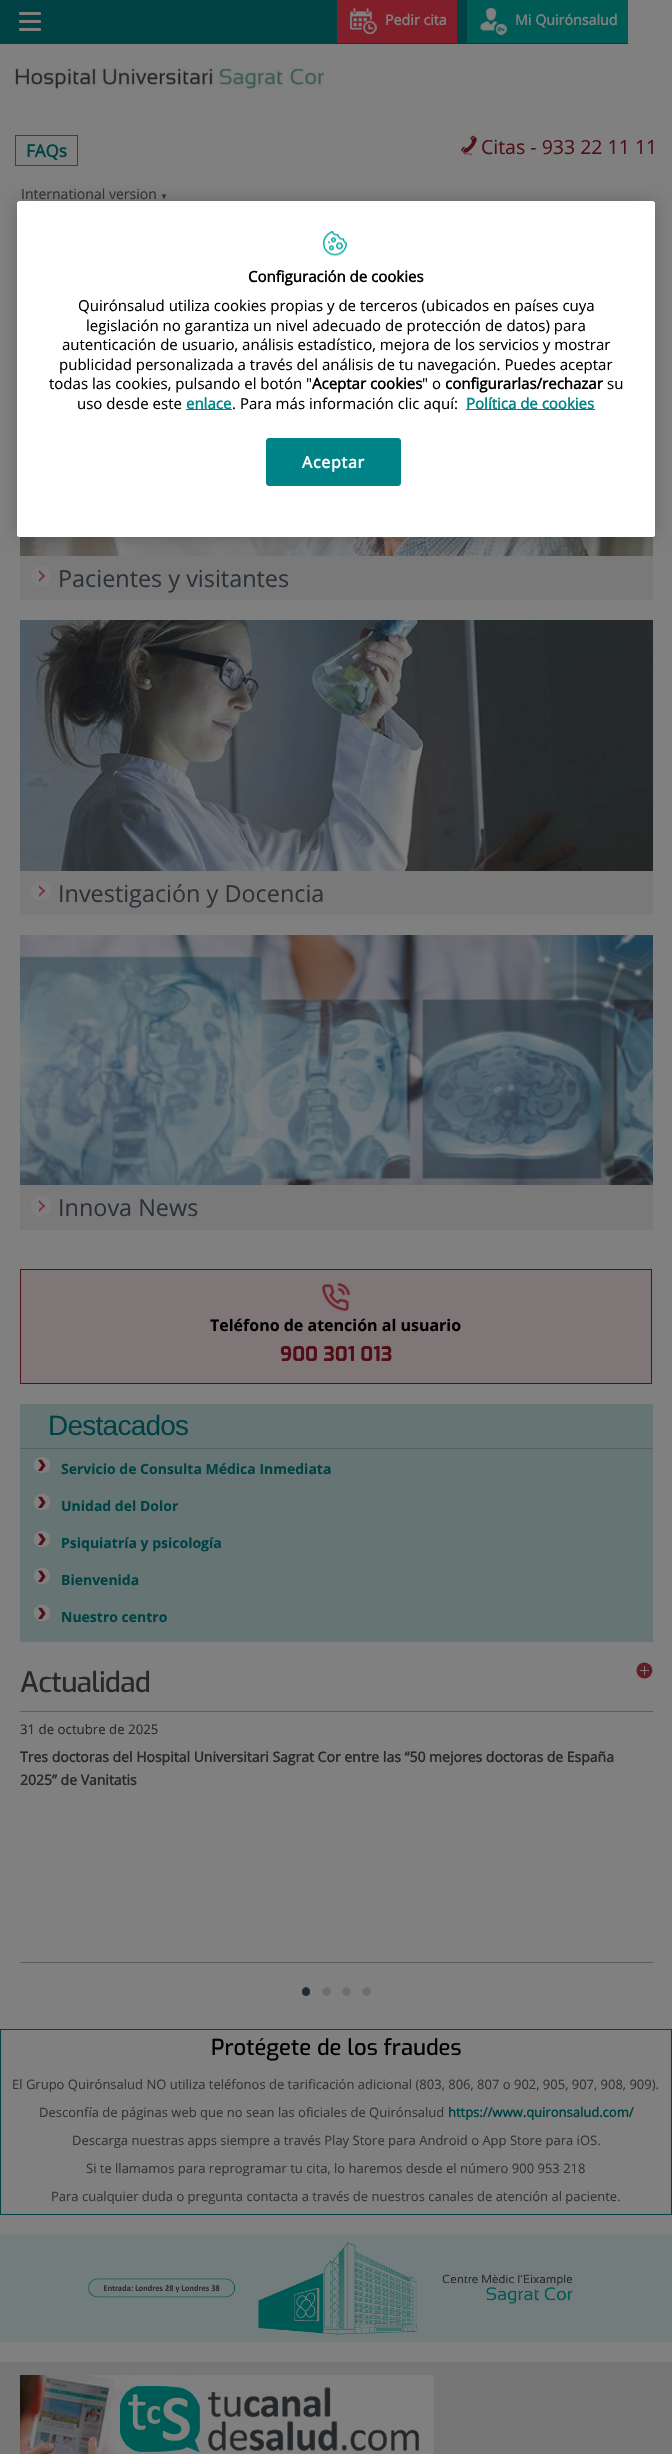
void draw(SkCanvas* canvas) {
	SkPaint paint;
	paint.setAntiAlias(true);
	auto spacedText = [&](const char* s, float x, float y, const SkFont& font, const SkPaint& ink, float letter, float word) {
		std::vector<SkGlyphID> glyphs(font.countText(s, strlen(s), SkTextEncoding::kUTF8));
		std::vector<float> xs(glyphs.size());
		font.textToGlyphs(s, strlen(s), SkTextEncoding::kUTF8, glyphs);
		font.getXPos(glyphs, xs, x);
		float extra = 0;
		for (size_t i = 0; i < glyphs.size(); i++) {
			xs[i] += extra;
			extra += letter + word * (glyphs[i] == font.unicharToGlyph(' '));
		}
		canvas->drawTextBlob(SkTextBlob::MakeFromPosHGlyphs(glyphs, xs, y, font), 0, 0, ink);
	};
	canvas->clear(0xff808080);
	paint.setColor(0xff004244);
	canvas->drawRect(SkRect::MakeXYWH(0, 0, 628, 44), paint);
	paint.setColor(0xff808080);
	canvas->drawRoundRect(SkRect::MakeXYWH(19, 12, 22, 3), 1, 1, paint);
	canvas->drawRoundRect(SkRect::MakeXYWH(19, 20, 22, 3), 1, 1, paint);
	canvas->drawRoundRect(SkRect::MakeXYWH(19, 28, 22, 3), 1, 1, paint);
	paint.setColor(0xff801e2a);
	canvas->drawRect(SkRect::MakeXYWH(337, 0, 120, 43), paint);
	canvas->drawImageRect(SkImages::DeferredFromEncodedData(SkData::MakeFromFileName("img1.png")), SkRect::MakeXYWH(350, 8, 27, 26), SkSamplingOptions());
	SkFont f1(fontMgr->matchFamilyStyle("Open Sans", SkFontStyle::Bold()), 14.25);
	f1.setSubpixel(true);
	paint.setColor(0xff808080);
	canvas->drawString("Pedir cita", 385, 25, f1, paint);
	paint.setColor(0xff005a55);
	canvas->drawRect(SkRect::MakeXYWH(467, 0, 161, 43), paint);
	canvas->drawImageRect(SkImages::DeferredFromEncodedData(SkData::MakeFromFileName("img2.png")), SkRect::MakeXYWH(480, 8, 27, 27), SkSamplingOptions());
	paint.setColor(0xff808080);
	canvas->drawString("Mi Quirónsalud", 515, 25, f1, paint);
	canvas->drawImageRect(SkImages::DeferredFromEncodedData(SkData::MakeFromFileName("img3.png")), SkRect::MakeXYWH(15, 68, 310, 21), SkSamplingOptions());
	paint.setStroke(true);
	paint.setStrokeWidth(1);
	paint.setColor(0xff005a55);
	canvas->drawRect(SkRect::MakeXYWH(15.5, 135.5, 62, 30), paint);
	SkFont f2(fontMgr->matchFamilyStyle("Open Sans", SkFontStyle::Bold()), 17);
	f2.setSubpixel(true);
	paint.setStroke(false);
	paint.setColor(0xff004244);
	canvas->drawString("FAQs", 26, 157, f2, paint);
	paint.setColor(0xff500f17);
	canvas->drawRect(SkRect::MakeXYWH(461, 134, 16, 22), paint);
	canvas->drawImageRect(SkImages::DeferredFromEncodedData(SkData::MakeFromFileName("img4.png")), SkRect::MakeXYWH(461, 134, 16, 24), SkSamplingOptions());
	SkFont f3(fontMgr->matchFamilyStyle("Open Sans", SkFontStyle::Normal()), 19.5);
	f3.setSubpixel(true);
	canvas->drawString("Citas - 933 22 11 11", 481, 154, f3, paint);
	SkFont f4(fontMgr->matchFamilyStyle("Open Sans", SkFontStyle::Normal()), 14);
	f4.setSubpixel(true);
	paint.setColor(0xff333333);
	canvas->drawString("International version", 21, 199, f4, paint);
	SkFont f5(fontMgr->matchFamilyStyle("Liberation Sans", SkFontStyle::Normal()), 8);
	f5.setSubpixel(true);
	canvas->drawString("▼", 160, 199, f5, paint);
	canvas->drawImageRect(SkImages::DeferredFromEncodedData(SkData::MakeFromFileName("img5.png")), SkRect::MakeXYWH(20, 536, 633, 20), SkSamplingOptions());
	paint.setColor(0xff797979);
	canvas->drawRect(SkRect::MakeXYWH(20, 556, 633, 44), paint);
	canvas->drawImageRect(SkImages::DeferredFromEncodedData(SkData::MakeFromFileName("img6.png")), SkRect::MakeXYWH(31, 566, 20, 20), SkSamplingOptions());
	SkFont f6(fontMgr->matchFamilyStyle("Open Sans", SkFontStyle::Normal()), 23.4);
	f6.setSubpixel(true);
	paint.setColor(0xff2b3136);
	canvas->drawString("Pacientes y visitantes", 58, 587, f6, paint);
	canvas->drawImageRect(SkImages::DeferredFromEncodedData(SkData::MakeFromFileName("img7.png")), SkRect::MakeXYWH(20, 620, 633, 251), SkSamplingOptions());
	paint.setColor(0xff797979);
	canvas->drawRect(SkRect::MakeXYWH(20, 871, 633, 44), paint);
	canvas->drawImageRect(SkImages::DeferredFromEncodedData(SkData::MakeFromFileName("img6.png")), SkRect::MakeXYWH(31, 881, 20, 20), SkSamplingOptions());
	paint.setColor(0xff2b3136);
	canvas->drawString("Investigación y Docencia", 58, 902, f6, paint);
	canvas->drawImageRect(SkImages::DeferredFromEncodedData(SkData::MakeFromFileName("img8.png")), SkRect::MakeXYWH(20, 935, 633, 250), SkSamplingOptions());
	paint.setColor(0xff797979);
	canvas->drawRect(SkRect::MakeXYWH(20, 1185, 633, 45), paint);
	canvas->drawImageRect(SkImages::DeferredFromEncodedData(SkData::MakeFromFileName("img6.png")), SkRect::MakeXYWH(31, 1196, 20, 20), SkSamplingOptions());
	paint.setColor(0xff2b3136);
	canvas->drawString("Innova News", 58, 1216, f6, paint);
	paint.setColor(0xff7e7677);
	canvas->drawRect(SkRect::MakeXYWH(20.5, 1269.5, 631, 114), paint);
	paint.setStroke(true);
	paint.setColor(0xff500f17);
	canvas->drawRect(SkRect::MakeXYWH(20.5, 1269.5, 631, 114), paint);
	canvas->drawImageRect(SkImages::DeferredFromEncodedData(SkData::MakeFromFileName("img9.png")), SkRect::MakeXYWH(322, 1283, 29, 29), SkSamplingOptions());
	SkFont f7(fontMgr->matchFamilyStyle("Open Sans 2", SkFontStyle::Bold()), 16);
	f7.setSubpixel(true);
	paint.setStroke(false);
	paint.setColor(0xff000000);
	canvas->drawString("Teléfono de atención al usuario", 210, 1331, f7, paint);
	SkFont f8(fontMgr->matchFamilyStyle("Exo", SkFontStyle::Bold()), 20);
	f8.setSubpixel(true);
	paint.setColor(0xff500f17);
	canvas->drawString("900 301 013", 280, 1361, f8, paint);
	paint.setColor(0xff677474);
	canvas->drawRect(SkRect::MakeXYWH(20, 1404, 633, 238), paint);
	paint.setColor(0xff5a5d5f);
	canvas->drawRect(SkRect::MakeXYWH(20, 1448, 633, 1), paint);
	SkFont f9(fontMgr->matchFamilyStyle("Liberation Sans", SkFontStyle::Normal()), 28);
	f9.setSubpixel(true);
	paint.setColor(0xff004244);
	spacedText("Destacados", 48, 1435, f9, paint, -0.75, 0);
	paint.setColor(0xff808080);
	canvas->drawRoundRect(SkRect::MakeXYWH(34, 1457, 16, 16), 7, 7, paint);
	SkFont f10(fontMgr->matchFamilyStyle("Liberation Sans", SkFontStyle::Bold()), 29);
	f10.setSubpixel(true);
	paint.setColor(0xff500f17);
	canvas->drawString("›", 37, 1473, f10, paint);
	SkFont f11(fontMgr->matchFamilyStyle("Open Sans 2", SkFontStyle::Bold()), 14);
	f11.setSubpixel(true);
	paint.setColor(0xff004244);
	canvas->drawString("Servicio de Consulta Médica Inmediata", 61, 1474, f11, paint);
	paint.setColor(0xff808080);
	canvas->drawRoundRect(SkRect::MakeXYWH(34, 1494, 16, 16), 7, 7, paint);
	paint.setColor(0xff500f17);
	canvas->drawString("›", 37, 1510, f10, paint);
	paint.setColor(0xff004244);
	canvas->drawString("Unidad del Dolor", 61, 1511, f11, paint);
	paint.setColor(0xff808080);
	canvas->drawRoundRect(SkRect::MakeXYWH(34, 1531, 16, 16), 7, 7, paint);
	paint.setColor(0xff500f17);
	canvas->drawString("›", 37, 1547, f10, paint);
	paint.setColor(0xff004244);
	canvas->drawString("Psiquiatría y psicología", 61, 1548, f11, paint);
	paint.setColor(0xff808080);
	canvas->drawRoundRect(SkRect::MakeXYWH(34, 1568, 16, 16), 7, 7, paint);
	paint.setColor(0xff500f17);
	canvas->drawString("›", 37, 1584, f10, paint);
	paint.setColor(0xff004244);
	canvas->drawString("Bienvenida", 61, 1585, f11, paint);
	paint.setColor(0xff808080);
	canvas->drawRoundRect(SkRect::MakeXYWH(34, 1605, 16, 16), 7, 7, paint);
	paint.setColor(0xff500f17);
	canvas->drawString("›", 37, 1621, f10, paint);
	paint.setColor(0xff004244);
	canvas->drawString("Nuestro centro", 61, 1622, f11, paint);
	paint.setColor(0xff5a5d5f);
	canvas->drawRect(SkRect::MakeXYWH(20, 1711, 633, 1), paint);
	canvas->drawImageRect(SkImages::DeferredFromEncodedData(SkData::MakeFromFileName("img10.png")), SkRect::MakeXYWH(636, 1662, 17, 17), SkSamplingOptions());
	SkFont f12(fontMgr->matchFamilyStyle("Exo", SkFontStyle(500, SkFontStyle::kNormal_Width, SkFontStyle::kUpright_Slant)), 28);
	f12.setSubpixel(true);
	paint.setColor(0xff26282a);
	spacedText("Actualidad", 20, 1692, f12, paint, -0.75, 0);
	SkFont f13(fontMgr->matchFamilyStyle("Open Sans", SkFontStyle::Normal()), 13.25);
	f13.setSubpixel(true);
	canvas->drawString("31 de octubre de 2025", 20, 1734, f13, paint);
	SkFont f14(fontMgr->matchFamilyStyle("Open Sans", SkFontStyle::Bold()), 14);
	f14.setSubpixel(true);
	canvas->drawString("Tres doctoras del Hospital Universitari Sagrat Cor entre las “50 mejores doctoras de España", 20, 1762, f14, paint);
	canvas->drawString("2025” de Vanitatis", 20, 1785, f14, paint);
	paint.setColor(0xff5a5d5f);
	canvas->drawRect(SkRect::MakeXYWH(20, 1962, 633, 1), paint);
	canvas->drawImageRect(SkImages::DeferredFromEncodedData(SkData::MakeFromFileName("img11.png")), SkRect::MakeXYWH(302, 1987, 8, 9), SkSamplingOptions());
	canvas->drawImageRect(SkImages::DeferredFromEncodedData(SkData::MakeFromFileName("img12.png")), SkRect::MakeXYWH(322, 1987, 9, 9), SkSamplingOptions());
	canvas->drawImageRect(SkImages::DeferredFromEncodedData(SkData::MakeFromFileName("img12.png")), SkRect::MakeXYWH(342, 1987, 9, 9), SkSamplingOptions());
	canvas->drawImageRect(SkImages::DeferredFromEncodedData(SkData::MakeFromFileName("img12.png")), SkRect::MakeXYWH(362, 1987, 9, 9), SkSamplingOptions());
	paint.setStroke(true);
	paint.setColor(0xff004244);
	canvas->drawRect(SkRect::MakeXYWH(0.5, 2029.5, 671, 185), paint);
	SkFont f15(fontMgr->matchFamilyStyle("Exo", SkFontStyle(500, SkFontStyle::kNormal_Width, SkFontStyle::kUpright_Slant)), 22);
	f15.setSubpixel(true);
	paint.setStroke(false);
	paint.setColor(0xff000000);
	canvas->drawString("Protégete de los fraudes", 211, 2055, f15, paint);
	SkFont f16(fontMgr->matchFamilyStyle("Open Sans", SkFontStyle::Normal()), 13);
	f16.setSubpixel(true);
	paint.setColor(0xff333333);
	canvas->drawString("El Grupo Quirónsalud NO utiliza teléfonos de tarificación adicional (803, 806, 807 o 902, 905, 907, 908, 909).", 12, 2089, f16, paint);
	canvas->drawString("Desconfía de páginas web que no sean las oficiales de Quirónsalud", 39, 2117, f16, paint);
	SkFont f17(fontMgr->matchFamilyStyle("Open Sans", SkFontStyle::Bold()), 13);
	f17.setSubpixel(true);
	paint.setColor(0xff004244);
	canvas->drawString("https://www.quironsalud.com/", 448, 2117, f17, paint);
	paint.setColor(0xff333333);
	canvas->drawString("Descarga nuestras apps siempre a través Play Store para Android o App Store para iOS.", 72, 2145, f16, paint);
	canvas->drawString("Si te llamamos para reprogramar tu cita, lo haremos desde el número 900 953 218", 86, 2173, f16, paint);
	canvas->drawString("Para cualquier duda o pregunta contacta a través de nuestros canales de atención al paciente.", 51, 2201, f16, paint);
	canvas->drawImageRect(SkImages::DeferredFromEncodedData(SkData::MakeFromFileName("img13.png")), SkRect::MakeXYWH(0, 2235, 672, 107), SkSamplingOptions());
	paint.setColor(0xff767676);
	canvas->drawRect(SkRect::MakeXYWH(0, 2362, 672, 92), paint);
	canvas->drawImageRect(SkImages::DeferredFromEncodedData(SkData::MakeFromFileName("img14.png")), SkRect::MakeXYWH(20, 2375, 414, 79), SkSamplingOptions());
	paint.setColor(0x33000000);
	paint.setMaskFilter(SkMaskFilter::MakeBlur(kNormal_SkBlurStyle, 9));
	canvas->drawRoundRect(SkRect::MakeXYWH(17, 201, 638, 336), 2.5, 2.5, paint);
	paint.setMaskFilter(nullptr);
	paint.setColor(0xffffffff);
	canvas->drawRoundRect(SkRect::MakeXYWH(17, 201, 638, 336), 2.5, 2.5, paint);
	canvas->drawImageRect(SkImages::DeferredFromEncodedData(SkData::MakeFromFileName("img15.png")), SkRect::MakeXYWH(323, 231, 24, 25), SkSamplingOptions());
	SkFont f18(fontMgr->matchFamilyStyle("Open Sans", SkFontStyle::Bold()), 15);
	f18.setSubpixel(true);
	paint.setColor(0xff000000);
	canvas->drawString("Configuración de cookies", 248, 282, f18, paint);
	SkFont f19(fontMgr->matchFamilyStyle("Open Sans", SkFontStyle::Normal()), 15);
	f19.setSubpixel(true);
	canvas->drawString("Quirónsalud utiliza cookies propias y de terceros (ubicados en países cuya", 78, 311, f19, paint);
	canvas->drawString("legislación no garantiza un nivel adecuado de protección de datos) para", 86, 331, f19, paint);
	canvas->drawString("autenticación de usuario, análisis estadístico, mejora de los servicios y mostrar", 62, 350, f19, paint);
	canvas->drawString("publicidad personalizada a través del análisis de tu navegación. Puedes aceptar", 59, 370, f19, paint);
	canvas->drawString("todas las cookies, pulsando el botón \"", 49, 389, f19, paint);
	canvas->drawString("Aceptar cookies", 312, 389, f18, paint);
	canvas->drawString("\" o", 422, 389, f19, paint);
	canvas->drawString("configurarlas/rechazar", 445, 389, f18, paint);
	canvas->drawString("su", 607, 389, f19, paint);
	canvas->drawString("uso desde este", 77, 409, f19, paint);
	paint.setColor(0xff008488);
	canvas->drawRect(SkRect::MakeXYWH(186, 409, 46, 1), paint);
	canvas->drawString("enlace", 186, 409, f18, paint);
	paint.setColor(0xff000000);
	canvas->drawString(". Para más información clic aquí:", 232, 409, f19, paint);
	paint.setColor(0xff008488);
	canvas->drawRect(SkRect::MakeXYWH(466, 409, 129, 1), paint);
	canvas->drawString("Política de cookies", 466, 409, f18, paint);
	canvas->drawRoundRect(SkRect::MakeXYWH(266.5, 438.5, 134, 47), 2.5, 2.5, paint);
	paint.setStroke(true);
	canvas->drawRoundRect(SkRect::MakeXYWH(266.5, 438.5, 134, 47), 2.5, 2.5, paint);
	SkFont f20(fontMgr->matchFamilyStyle("Open Sans", SkFontStyle::Bold()), 16);
	f20.setSubpixel(true);
	paint.setStroke(false);
	paint.setColor(0xffffffff);
	spacedText("Aceptar", 302, 468, f20, paint, 0.75, 0);
}
